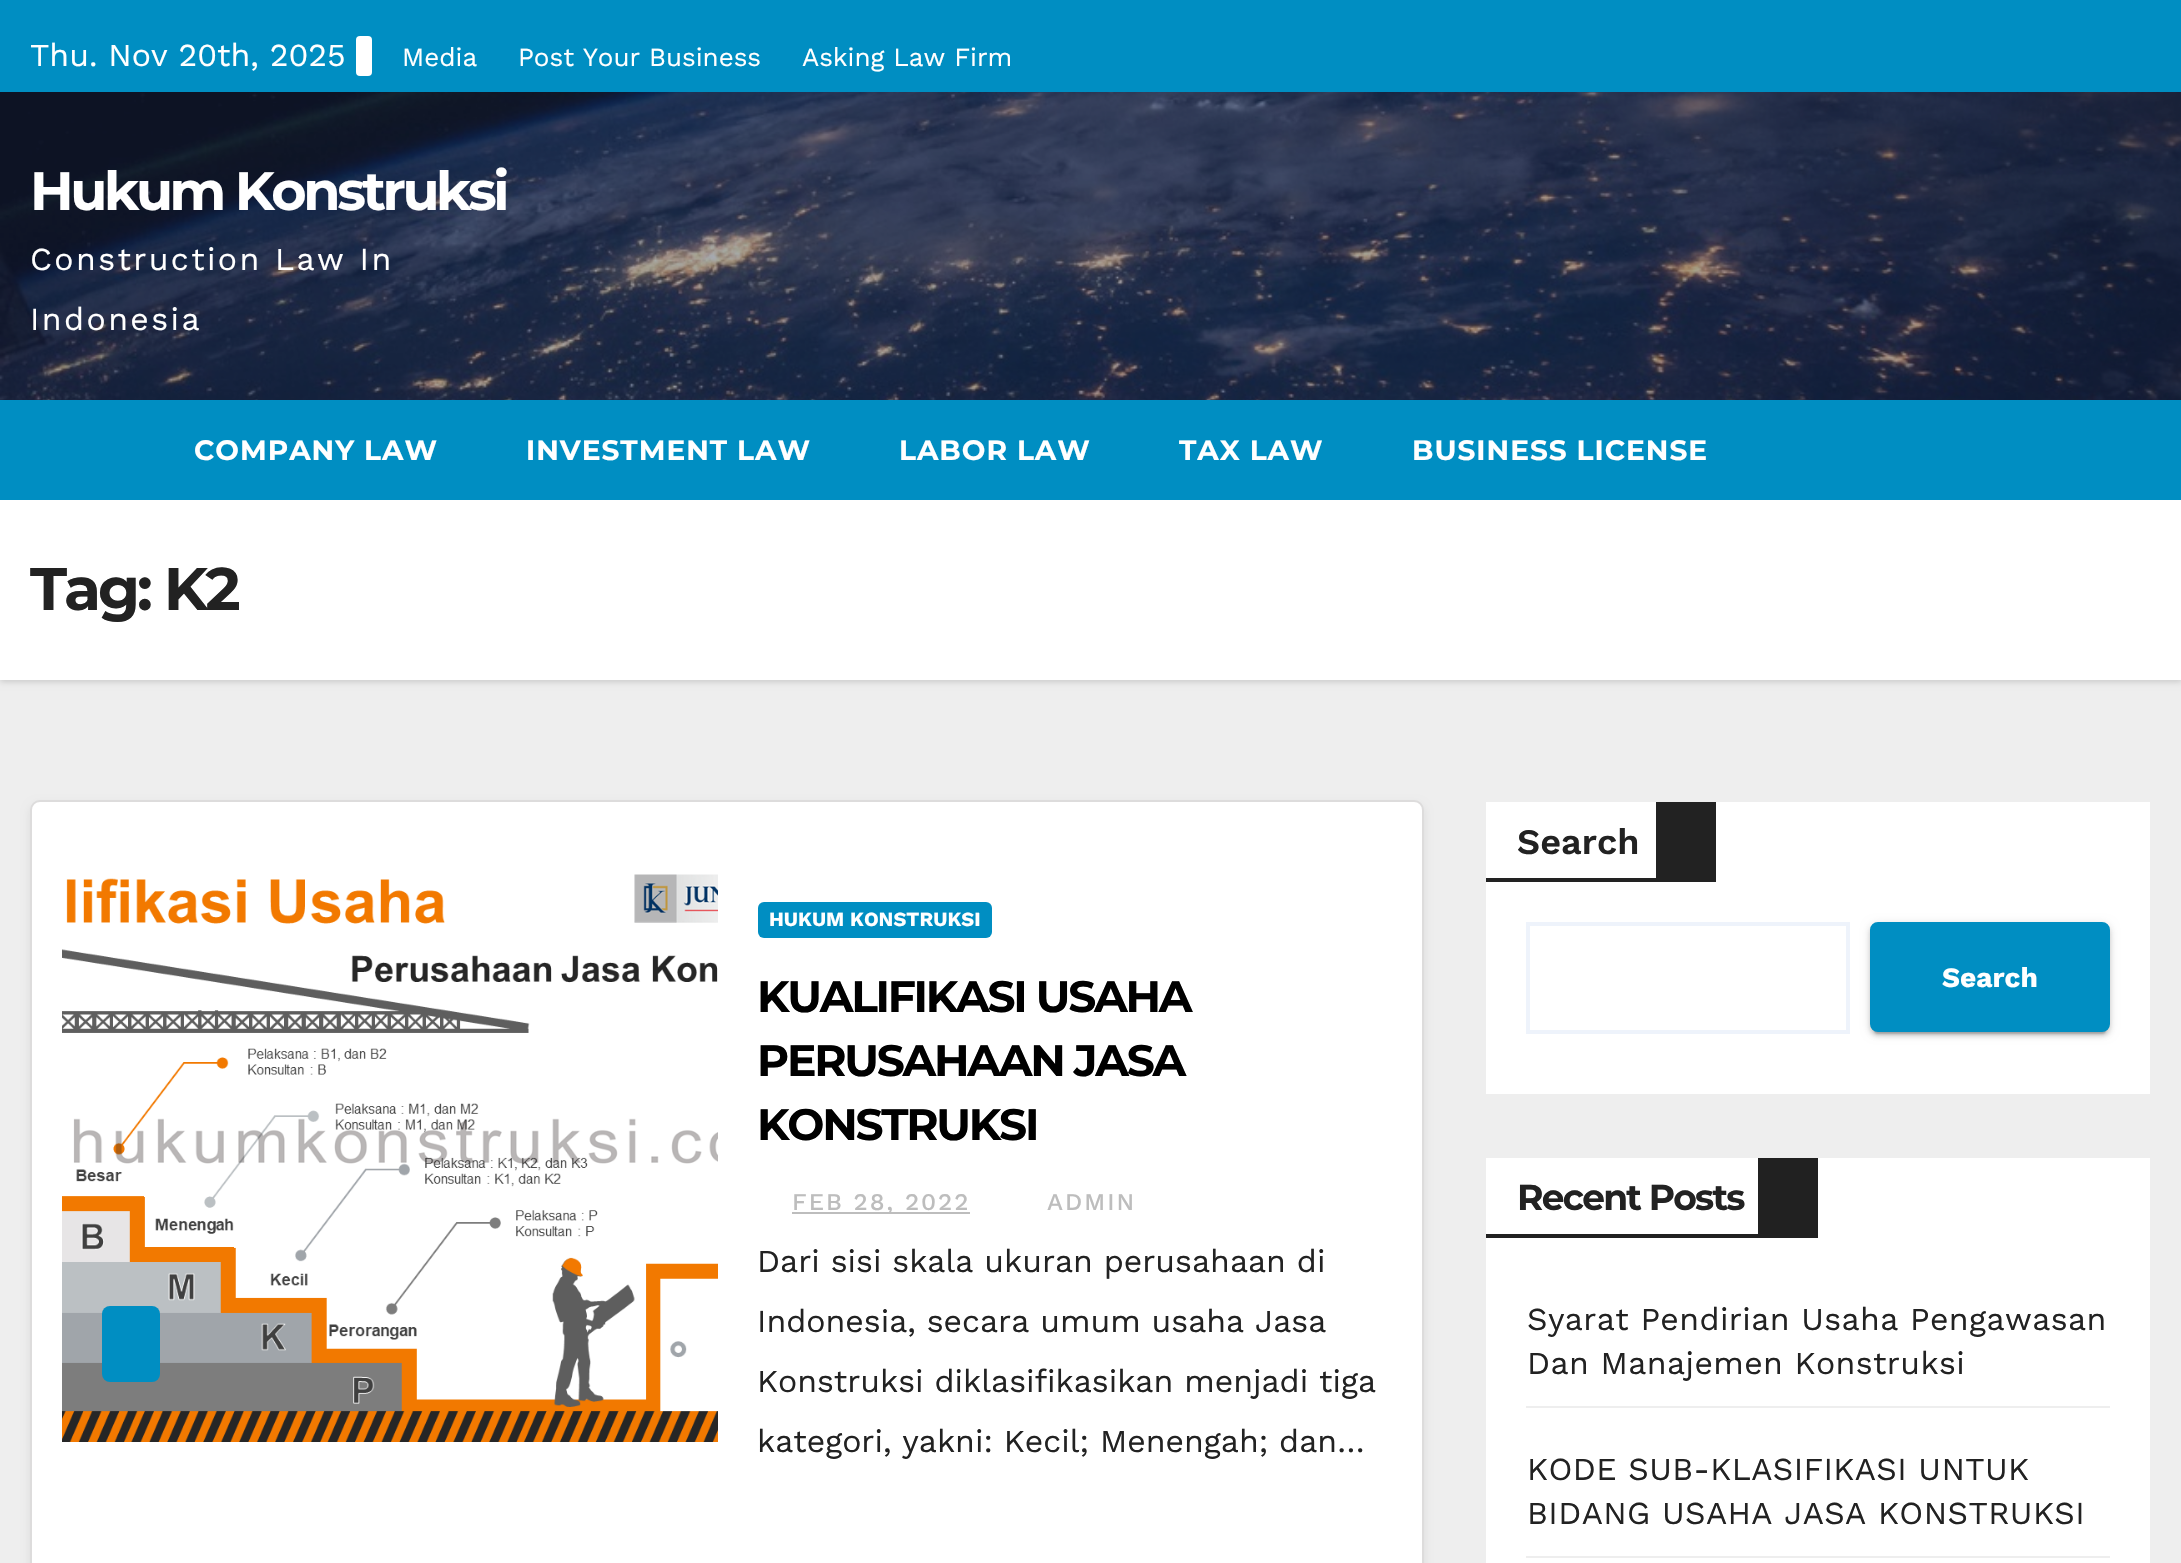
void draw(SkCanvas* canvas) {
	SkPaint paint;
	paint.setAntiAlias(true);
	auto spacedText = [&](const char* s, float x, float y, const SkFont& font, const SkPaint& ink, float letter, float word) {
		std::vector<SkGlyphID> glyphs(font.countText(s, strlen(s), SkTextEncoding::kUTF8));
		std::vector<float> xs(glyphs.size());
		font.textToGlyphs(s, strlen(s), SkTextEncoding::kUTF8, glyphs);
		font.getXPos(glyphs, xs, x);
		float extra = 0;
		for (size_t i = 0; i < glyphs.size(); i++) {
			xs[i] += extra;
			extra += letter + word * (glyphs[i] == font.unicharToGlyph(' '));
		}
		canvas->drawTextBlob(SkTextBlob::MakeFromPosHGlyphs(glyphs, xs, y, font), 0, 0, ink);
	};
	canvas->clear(0xffeeeeee);
	paint.setColor(0xff008ec2);
	canvas->drawRect(SkRect::MakeXYWH(0, 0, 2181, 92), paint);
	SkFont f1(fontMgr->matchFamilyStyle("Work Sans", SkFontStyle::Normal()), 32);
	f1.setSubpixel(true);
	paint.setColor(0xffffffff);
	canvas->drawString("Thu. Nov 20th, 2025", 30, 66, f1, paint);
	canvas->drawRoundRect(SkRect::MakeXYWH(356, 36, 16, 40), 4, 4, paint);
	SkFont f2(fontMgr->matchFamilyStyle("Work Sans", SkFontStyle::Normal()), 26);
	f2.setSubpixel(true);
	canvas->drawString("Media", 402, 66, f2, paint);
	canvas->drawString("Post Your Business", 518, 66, f2, paint);
	canvas->drawString("Asking Law Firm", 802, 66, f2, paint);
	canvas->drawImageRect(SkImages::DeferredFromEncodedData(SkData::MakeFromFileName("img1.png")), SkRect::MakeXYWH(0, 92, 2181, 308), SkSamplingOptions());
	SkFont f3(fontMgr->matchFamilyStyle("Montserrat", SkFontStyle::Bold()), 54);
	f3.setSubpixel(true);
	spacedText("Hukum Konstruksi", 30, 210, f3, paint, -3.4, 0);
	spacedText("Construction Law In", 30, 270, f1, paint, 2.4, 0);
	spacedText("Indonesia", 30, 330, f1, paint, 2.4, 0);
	paint.setColor(0x26000000);
	paint.setMaskFilter(SkMaskFilter::MakeBlur(kNormal_SkBlurStyle, 3));
	canvas->drawRect(SkRect::MakeXYWH(0, 502, 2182, 180), paint);
	paint.setMaskFilter(nullptr);
	paint.setColor(0xff008ec2);
	canvas->drawRect(SkRect::MakeXYWH(0, 400, 2181, 100), paint);
	SkFont f4(fontMgr->matchFamilyStyle("Montserrat", SkFontStyle::Bold()), 28);
	f4.setSubpixel(true);
	paint.setColor(0xffffffff);
	spacedText("COMPANY LAW", 194, 460, f4, paint, 1, 0);
	spacedText("INVESTMENT LAW", 526, 460, f4, paint, 1, 0);
	spacedText("LABOR LAW", 899, 460, f4, paint, 1, 0);
	spacedText("TAX LAW", 1179, 460, f4, paint, 1, 0);
	spacedText("BUSINESS LICENSE", 1412, 460, f4, paint, 1, 0);
	canvas->drawRect(SkRect::MakeXYWH(0, 500, 2181, 180), paint);
	SkFont f5(fontMgr->matchFamilyStyle("Montserrat", SkFontStyle::Bold()), 60);
	f5.setSubpixel(true);
	paint.setColor(0xff222222);
	spacedText("Tag: K2", 30, 610, f5, paint, -3, 0);
	paint.setColor(0x14000000);
	paint.setMaskFilter(SkMaskFilter::MakeBlur(kNormal_SkBlurStyle, 4));
	canvas->drawRoundRect(SkRect::MakeXYWH(30, 804, 1394, 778), 10, 10, paint);
	paint.setMaskFilter(nullptr);
	paint.setColor(0xffffffff);
	canvas->drawRoundRect(SkRect::MakeXYWH(31, 801, 1392, 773), 9, 9, paint);
	paint.setStroke(true);
	paint.setStrokeWidth(2);
	paint.setColor(0xffdddcdc);
	canvas->drawRoundRect(SkRect::MakeXYWH(31, 801, 1392, 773), 9, 9, paint);
	canvas->drawImageRect(SkImages::DeferredFromEncodedData(SkData::MakeFromFileName("img2.png")), SkRect::MakeXYWH(62, 842, 656, 600), SkSamplingOptions());
	paint.setStroke(false);
	paint.setColor(0xff008ec2);
	canvas->drawRoundRect(SkRect::MakeXYWH(102, 1306, 58, 76), 8, 8, paint);
	canvas->drawRoundRect(SkRect::MakeXYWH(758, 902, 234, 36), 6, 6, paint);
	SkFont f6(fontMgr->matchFamilyStyle("Work Sans", SkFontStyle::Bold()), 20);
	f6.setSubpixel(true);
	paint.setColor(0xffffffff);
	canvas->drawString("HUKUM KONSTRUKSI", 769, 926, f6, paint);
	SkFont f7(fontMgr->matchFamilyStyle("Montserrat", SkFontStyle::Bold()), 44);
	f7.setSubpixel(true);
	paint.setColor(0xff000000);
	spacedText("KUALIFIKASI USAHA", 757, 1012, f7, paint, -2.25, 0);
	spacedText("PERUSAHAAN JASA", 757, 1076, f7, paint, -2.25, 0);
	spacedText("KONSTRUKSI", 757, 1140, f7, paint, -2.25, 0);
	paint.setColor(0xffbdbdbd);
	canvas->drawRect(SkRect::MakeXYWH(792, 1212, 178, 2), paint);
	SkFont f8(fontMgr->matchFamilyStyle("Work Sans", SkFontStyle(500, SkFontStyle::kNormal_Width, SkFontStyle::kUpright_Slant)), 24);
	f8.setSubpixel(true);
	spacedText("FEB 28, 2022", 792, 1210, f8, paint, 2, 0);
	spacedText("ADMIN", 1047, 1210, f8, paint, 2, 0);
	paint.setColor(0xff222222);
	canvas->drawString("Dari sisi skala ukuran perusahaan di", 757, 1272, f1, paint);
	canvas->drawString("Indonesia, secara umum usaha Jasa", 757, 1332, f1, paint);
	canvas->drawString("Konstruksi diklasifikasikan menjadi tiga", 757, 1392, f1, paint);
	canvas->drawString("kategori, yakni: Kecil; Menengah; dan…", 757, 1452, f1, paint);
	paint.setColor(0xffffffff);
	canvas->drawRect(SkRect::MakeXYWH(1486, 802, 664, 292), paint);
	paint.setColor(0xff222222);
	canvas->drawRect(SkRect::MakeXYWH(1486, 878, 170, 4), paint);
	SkFont f9(fontMgr->matchFamilyStyle("Work Sans", SkFontStyle(600, SkFontStyle::kNormal_Width, SkFontStyle::kUpright_Slant)), 36);
	f9.setSubpixel(true);
	canvas->drawString("Search", 1517, 854, f9, paint);
	canvas->drawRect(SkRect::MakeXYWH(1656, 802, 60, 80), paint);
	paint.setStroke(true);
	paint.setStrokeWidth(4);
	paint.setColor(0xffeef3fb);
	canvas->drawRect(SkRect::MakeXYWH(1528, 924, 320, 108), paint);
	paint.setStroke(false);
	paint.setColor(0x1f000000);
	paint.setMaskFilter(SkMaskFilter::MakeBlur(kNormal_SkBlurStyle, 5));
	canvas->drawRoundRect(SkRect::MakeXYWH(1870, 924, 240, 110), 8, 8, paint);
	paint.setMaskFilter(nullptr);
	paint.setColor(0x33000000);
	paint.setMaskFilter(SkMaskFilter::MakeBlur(kNormal_SkBlurStyle, 1));
	canvas->drawRoundRect(SkRect::MakeXYWH(1874, 932, 232, 102), 4, 4, paint);
	paint.setMaskFilter(nullptr);
	paint.setColor(0x24000000);
	paint.setMaskFilter(SkMaskFilter::MakeBlur(kNormal_SkBlurStyle, 2));
	canvas->drawRoundRect(SkRect::MakeXYWH(1870, 926, 240, 110), 8, 8, paint);
	paint.setMaskFilter(nullptr);
	paint.setColor(0xff008ec2);
	canvas->drawRoundRect(SkRect::MakeXYWH(1871, 923, 238, 108), 7, 7, paint);
	paint.setStroke(true);
	paint.setStrokeWidth(2);
	canvas->drawRoundRect(SkRect::MakeXYWH(1871, 923, 238, 108), 7, 7, paint);
	SkFont f10(fontMgr->matchFamilyStyle("Work Sans", SkFontStyle::Bold()), 28);
	f10.setSubpixel(true);
	paint.setStroke(false);
	paint.setColor(0xffffffff);
	canvas->drawString("Search", 1942, 987, f10, paint);
	canvas->drawRect(SkRect::MakeXYWH(1486, 1158, 664, 405), paint);
	paint.setColor(0xff212121);
	canvas->drawRect(SkRect::MakeXYWH(1486, 1234, 272, 4), paint);
	SkFont f11(fontMgr->matchFamilyStyle("Montserrat", SkFontStyle::Bold()), 36);
	f11.setSubpixel(true);
	paint.setColor(0xff222222);
	spacedText("Recent Posts", 1517, 1210, f11, paint, -1.75, 0);
	paint.setColor(0xff212121);
	canvas->drawRect(SkRect::MakeXYWH(1758, 1158, 60, 80), paint);
	paint.setColor(0xffeeeeee);
	canvas->drawRect(SkRect::MakeXYWH(1526, 1406, 584, 2), paint);
	paint.setColor(0xff222222);
	spacedText("Syarat Pendirian Usaha Pengawasan", 1527, 1330, f1, paint, 0.4, 0);
	spacedText("Dan Manajemen Konstruksi", 1527, 1374, f1, paint, 0.4, 0);
	paint.setColor(0xffeeeeee);
	canvas->drawRect(SkRect::MakeXYWH(1526, 1556, 584, 2), paint);
	paint.setColor(0xff222222);
	spacedText("KODE SUB-KLASIFIKASI UNTUK", 1527, 1480, f1, paint, 0.4, 0);
	spacedText("BIDANG USAHA JASA KONSTRUKSI", 1527, 1524, f1, paint, 0.4, 0);
}
